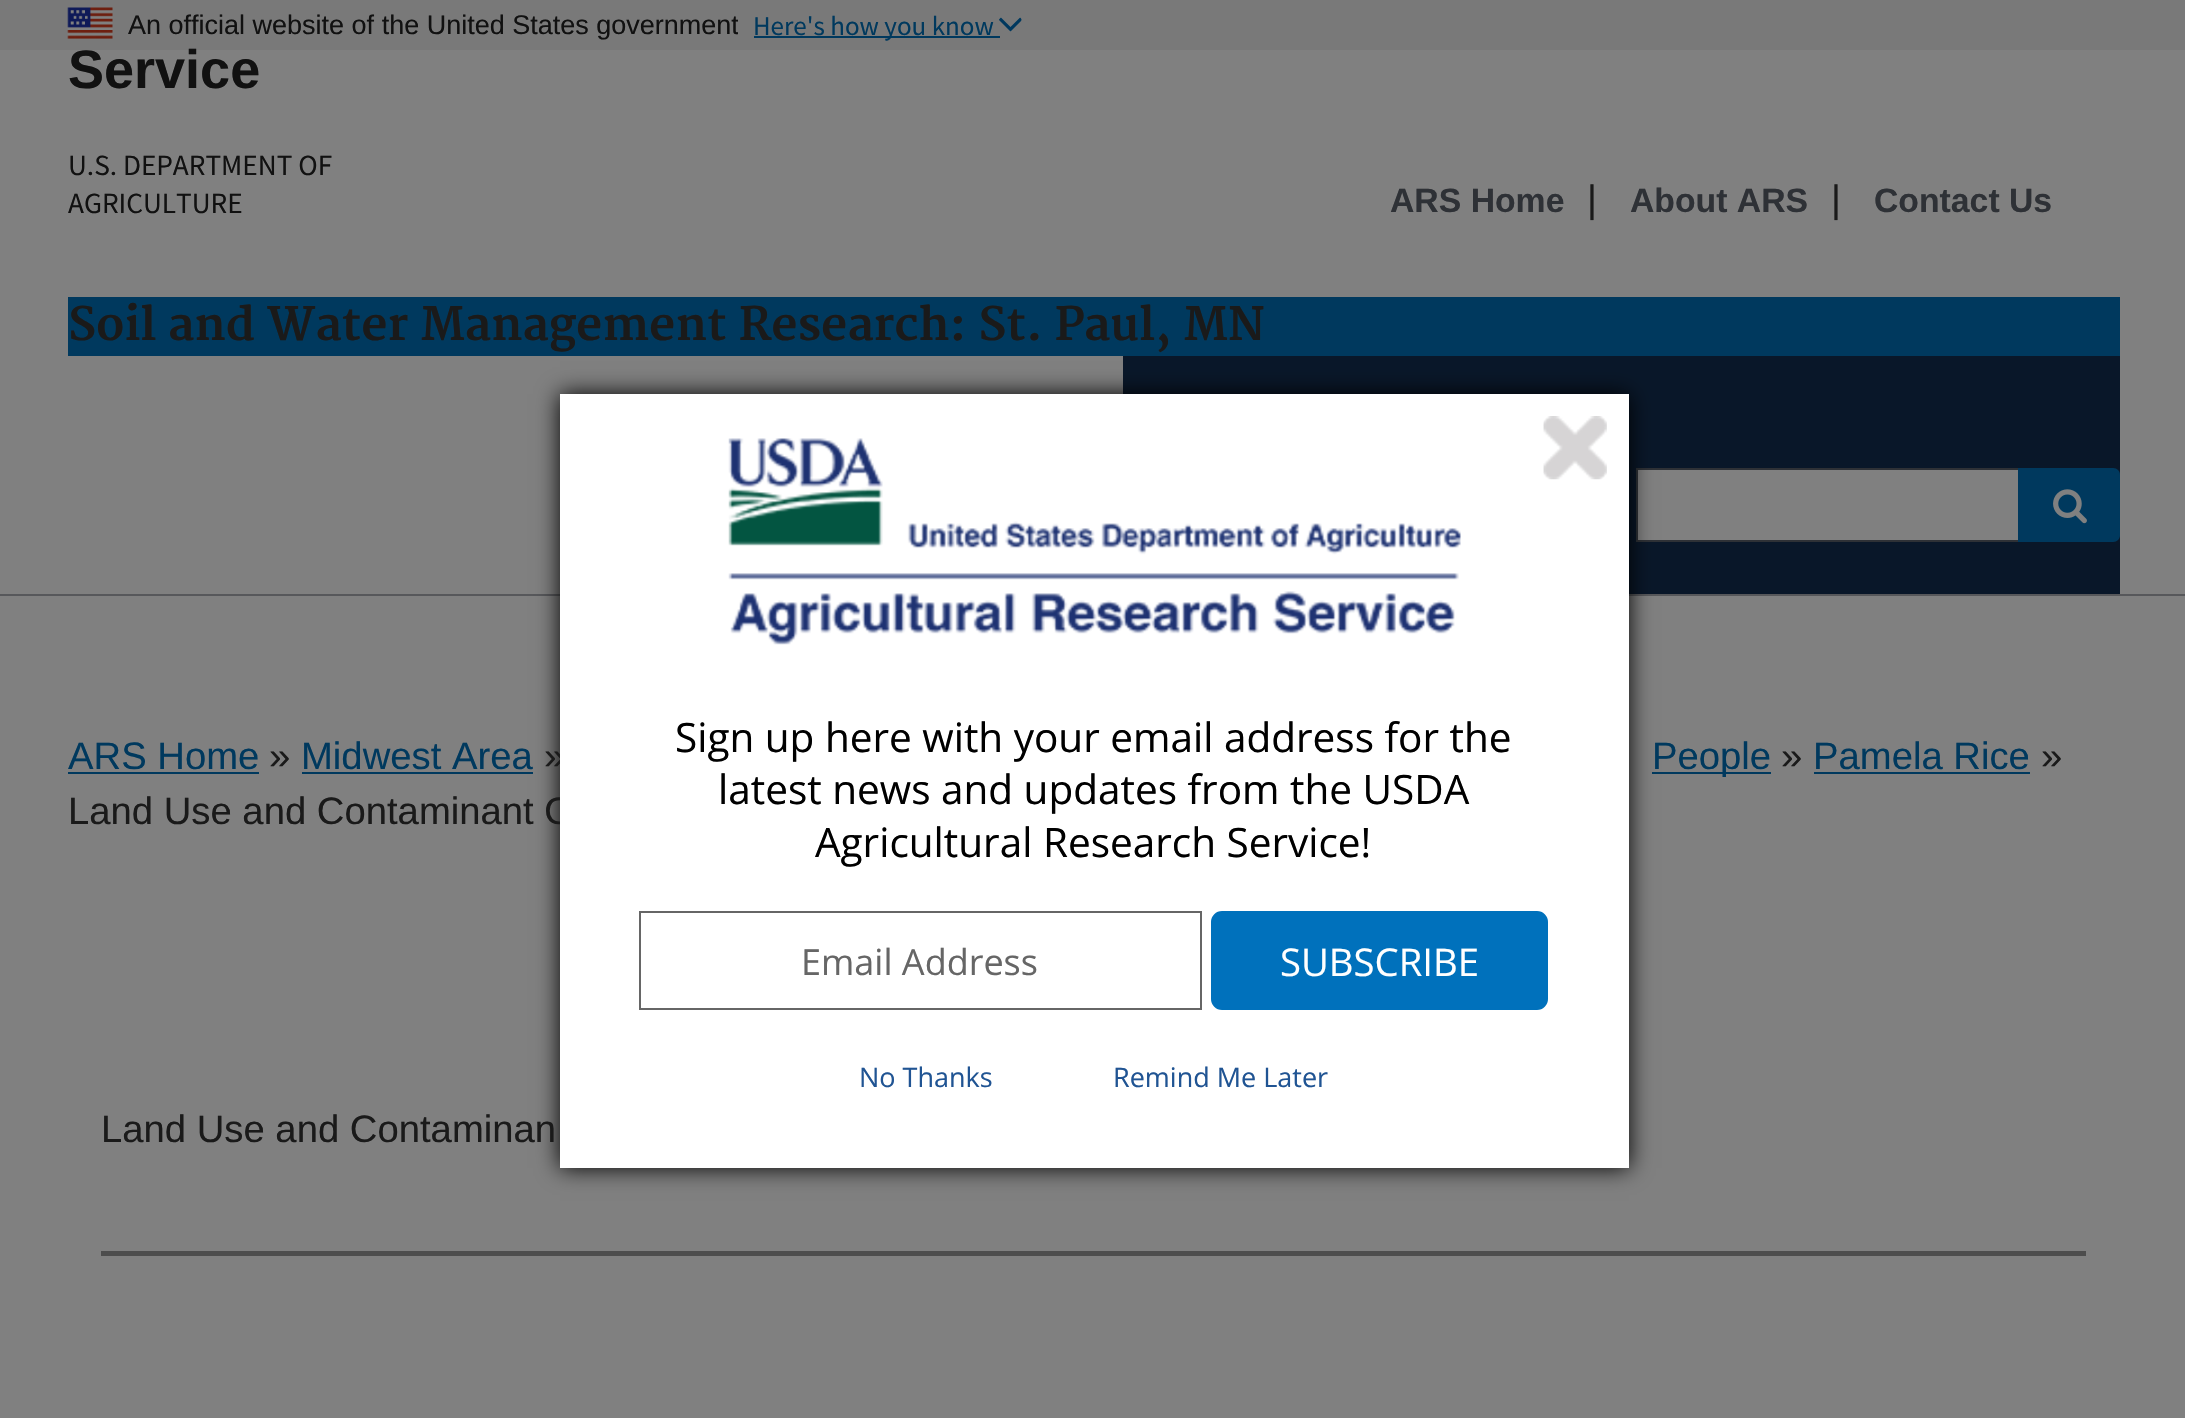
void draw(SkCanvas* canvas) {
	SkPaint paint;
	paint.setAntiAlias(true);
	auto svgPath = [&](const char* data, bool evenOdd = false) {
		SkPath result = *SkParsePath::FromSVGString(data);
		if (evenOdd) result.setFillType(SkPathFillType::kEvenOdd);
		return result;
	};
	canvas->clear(0xff808080);
	paint.setColor(0xff57585b);
	canvas->drawRect(SkRect::MakeXYWH(0, 594, 2185, 2), paint);
	paint.setColor(0xff797979);
	canvas->drawRect(SkRect::MakeXYWH(0, 0, 2185, 50), paint);
	canvas->drawImageRect(SkImages::DeferredFromEncodedData(SkData::MakeFromFileName("img1.png")), SkRect::MakeXYWH(67, 7, 46, 32), SkSamplingOptions());
	canvas->save();
	canvas->clipRect(SkRect::MakeXYWH(128, 5, 610, 40));
	SkFont f1(fontMgr->matchFamilyStyle("Liberation Sans", SkFontStyle::Normal()), 27);
	f1.setSubpixel(true);
	paint.setColor(0xff111111);
	canvas->drawString("An official website of the United States government", 128, 34, f1, paint);
	canvas->restore();
	paint.setColor(0xff00395e);
	canvas->drawRect(SkRect::MakeXYWH(754, 36, 246, 2), paint);
	SkFont f2(fontMgr->matchFamilyStyle("Source Sans Pro", SkFontStyle::Normal()), 27);
	f2.setSubpixel(true);
	canvas->drawString("Here's how you know", 753, 35, f2, paint);
	canvas->drawImageRect(SkImages::DeferredFromEncodedData(SkData::MakeFromFileName("img2.png")), SkRect::MakeXYWH(999, 17, 23, 15), SkSamplingOptions());
	SkFont f3(fontMgr->matchFamilyStyle("Liberation Sans", SkFontStyle::Bold()), 54);
	f3.setSubpixel(true);
	paint.setColor(0xff111111);
	canvas->drawString("Service", 68, 88, f3, paint);
	SkFont f4(fontMgr->matchFamilyStyle("Source Sans Pro", SkFontStyle::Normal()), 29.25);
	f4.setSubpixel(true);
	canvas->drawString("U.S. DEPARTMENT OF", 68, 175, f4, paint);
	canvas->drawString("AGRICULTURE", 68, 213, f4, paint);
	paint.setColor(0xff091729);
	canvas->drawRect(SkRect::MakeXYWH(1123, 356, 997, 238), paint);
	SkFont f5(fontMgr->matchFamilyStyle("Liberation Sans", SkFontStyle::Bold()), 33.75);
	f5.setSubpixel(true);
	paint.setColor(0xff2e3136);
	canvas->drawString("ARS Home", 1390, 212, f5, paint);
	SkFont f6(fontMgr->matchFamilyStyle("Liberation Sans", SkFontStyle::Normal()), 38.25);
	f6.setSubpixel(true);
	paint.setColor(0xff1a1a1a);
	canvas->drawString("|", 1587, 212, f6, paint);
	paint.setColor(0xff2e3136);
	canvas->drawString("About ARS", 1630, 212, f5, paint);
	paint.setColor(0xff1a1a1a);
	canvas->drawString("|", 1831, 212, f6, paint);
	paint.setColor(0xff2e3136);
	canvas->drawString("Contact Us", 1874, 212, f5, paint);
	paint.setColor(0xff808080);
	canvas->drawRect(SkRect::MakeXYWH(1638, 470, 380, 70), paint);
	paint.setColor(0xff2e3136);
	canvas->drawRect(SkRect::MakeXYWH(1636, 468, 382, 2), paint);
	canvas->drawRect(SkRect::MakeXYWH(1636, 540, 382, 2), paint);
	canvas->drawRect(SkRect::MakeXYWH(1636, 468, 2, 74), paint);
	paint.setColor(0xff00395e);
	canvas->drawPath(svgPath("M2018 468H2113C2117 468 2120 471 2120 475V535C2120 539 2117 542 2113 542H2018Z"), paint);
	canvas->drawImageRect(SkImages::DeferredFromEncodedData(SkData::MakeFromFileName("img3.png")), SkRect::MakeXYWH(2053, 489, 34, 35), SkSamplingOptions());
	canvas->drawRect(SkRect::MakeXYWH(68, 297, 2052, 59), paint);
	SkFont f7(fontMgr->matchFamilyStyle("Merriweather", SkFontStyle::Bold()), 45);
	f7.setSubpixel(true);
	paint.setColor(0xff1a1a1a);
	canvas->drawString("Soil and Water Management Research: St. Paul, MN", 68, 340, f7, paint);
	paint.setColor(0xff00395e);
	canvas->drawRect(SkRect::MakeXYWH(302, 772, 231, 2), paint);
	canvas->drawRect(SkRect::MakeXYWH(1652, 772, 119, 2), paint);
	paint.setColor(0xff000000);
	paint.setMaskFilter(SkMaskFilter::MakeBlur(kNormal_SkBlurStyle, 11));
	canvas->drawRect(SkRect::MakeXYWH(560, 394, 1069, 774), paint);
	paint.setMaskFilter(nullptr);
	paint.setColor(0xff1a1a1a);
	canvas->drawString("»", 544, 769, f6, paint);
	canvas->drawString("Land Use and Contaminant O", 68, 824, f6, paint);
	paint.setColor(0xffffffff);
	canvas->drawRect(SkRect::MakeXYWH(560, 394, 1069, 774), paint);
	canvas->drawImageRect(SkImages::DeferredFromEncodedData(SkData::MakeFromFileName("img4.png")), SkRect::MakeXYWH(728, 438, 733, 207), SkSamplingOptions());
	canvas->drawImageRect(SkImages::DeferredFromEncodedData(SkData::MakeFromFileName("img5.png")), SkRect::MakeXYWH(1543, 416, 64, 64), SkSamplingOptions());
	SkFont f8(fontMgr->matchFamilyStyle("Open Sans", SkFontStyle::Normal()), 40.5);
	f8.setSubpixel(true);
	paint.setColor(0xff000000);
	canvas->drawString("Sign up here with your email address for the", 675, 752, f8, paint);
	canvas->drawString("latest news and updates from the USDA", 718, 804, f8, paint);
	canvas->drawString("Agricultural Research Service!", 815, 857, f8, paint);
	paint.setStroke(true);
	paint.setStrokeWidth(2);
	paint.setColor(0xff666666);
	canvas->drawRect(SkRect::MakeXYWH(640, 912, 561, 97), paint);
	SkFont f9(fontMgr->matchFamilyStyle("Open Sans", SkFontStyle::Normal()), 36);
	f9.setSubpixel(true);
	paint.setStroke(false);
	canvas->drawString("Email Address", 801, 975, f9, paint);
	paint.setColor(0xff0071bc);
	canvas->drawRoundRect(SkRect::MakeXYWH(1212, 912, 335, 97), 10, 10, paint);
	paint.setStroke(true);
	canvas->drawRoundRect(SkRect::MakeXYWH(1212, 912, 335, 97), 10, 10, paint);
	SkFont f10(fontMgr->matchFamilyStyle("Open Sans", SkFontStyle::Normal()), 38.25);
	f10.setSubpixel(true);
	paint.setStroke(false);
	paint.setColor(0xffffffff);
	canvas->drawString("SUBSCRIBE", 1280, 976, f10, paint);
	SkFont f11(fontMgr->matchFamilyStyle("Open Sans", SkFontStyle::Normal()), 27);
	f11.setSubpixel(true);
	paint.setColor(0xff205493);
	canvas->drawString("No Thanks", 859, 1087, f11, paint);
	canvas->drawString("Remind Me Later", 1113, 1087, f11, paint);
	paint.setColor(0xff00395e);
	canvas->drawString("ARS Home", 68, 769, f6, paint);
	canvas->drawRect(SkRect::MakeXYWH(68, 772, 191, 2), paint);
	paint.setColor(0xff1a1a1a);
	canvas->drawString("»", 269, 769, f6, paint);
	paint.setColor(0xff00395e);
	canvas->drawString("Midwest Area", 301, 769, f6, paint);
	canvas->drawString("People", 1652, 769, f6, paint);
	paint.setColor(0xff1a1a1a);
	canvas->drawString("»", 1781, 769, f6, paint);
	paint.setColor(0xff00395e);
	canvas->drawString("Pamela Rice", 1813, 769, f6, paint);
	canvas->drawRect(SkRect::MakeXYWH(1814, 772, 216, 2), paint);
	paint.setColor(0xff1a1a1a);
	canvas->drawString("»", 2041, 769, f6, paint);
	canvas->drawString("Land Use and Contaminan", 101, 1142, f6, paint);
	paint.setColor(0xff4d4d4d);
	canvas->drawRect(SkRect::MakeXYWH(101, 1251, 1985, 5), paint);
}
